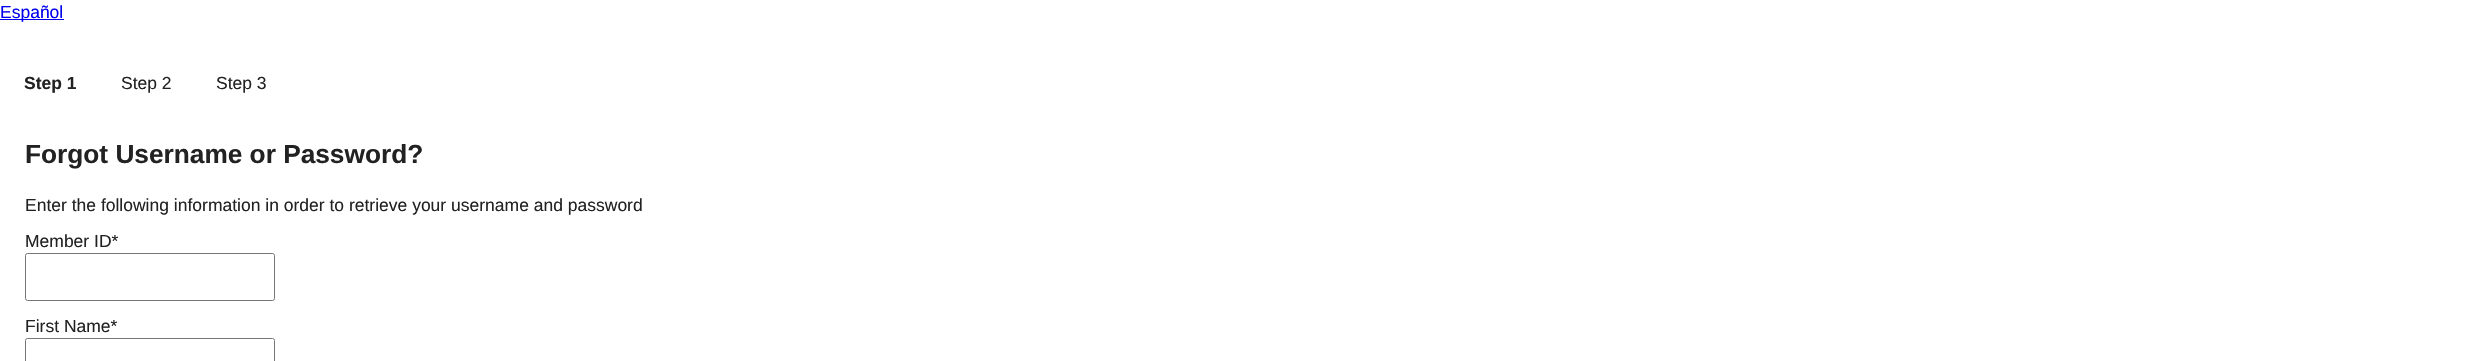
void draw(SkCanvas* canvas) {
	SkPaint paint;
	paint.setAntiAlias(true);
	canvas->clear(0xffffffff);
	paint.setColor(0xff0000ee);
	canvas->drawRect(SkRect::MakeXYWH(0, 19, 64, 1), paint);
	SkFont f1(fontMgr->matchFamilyStyle("Liberation Sans", SkFontStyle::Normal()), 17.5);
	f1.setSubpixel(true);
	canvas->drawString("Español", 0, 18, f1, paint);
	SkFont f2(fontMgr->matchFamilyStyle("Liberation Sans", SkFontStyle::Bold()), 17.5);
	f2.setSubpixel(true);
	paint.setColor(0xff222222);
	canvas->drawString("Step 1", 24, 89, f2, paint);
	canvas->drawString("Step 2", 121, 89, f1, paint);
	canvas->drawString("Step 3", 216, 89, f1, paint);
	SkFont f3(fontMgr->matchFamilyStyle("Liberation Sans", SkFontStyle::Bold()), 26.25);
	f3.setSubpixel(true);
	canvas->drawString("Forgot Username or Password?", 25, 163, f3, paint);
	canvas->drawString("Enter the following information in order to retrieve your username and password", 25, 211, f1, paint);
	canvas->drawString("Member ID*", 25, 247, f1, paint);
	paint.setStroke(true);
	paint.setStrokeWidth(1);
	paint.setColor(0xff767676);
	canvas->drawRoundRect(SkRect::MakeXYWH(25.5, 253.5, 249, 47), 2, 2, paint);
	paint.setStroke(false);
	paint.setColor(0xff222222);
	canvas->drawString("First Name*", 25, 332, f1, paint);
	paint.setStroke(true);
	paint.setColor(0xff767676);
	canvas->drawRoundRect(SkRect::MakeXYWH(25.5, 338.5, 249, 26), 2, 2, paint);
}
